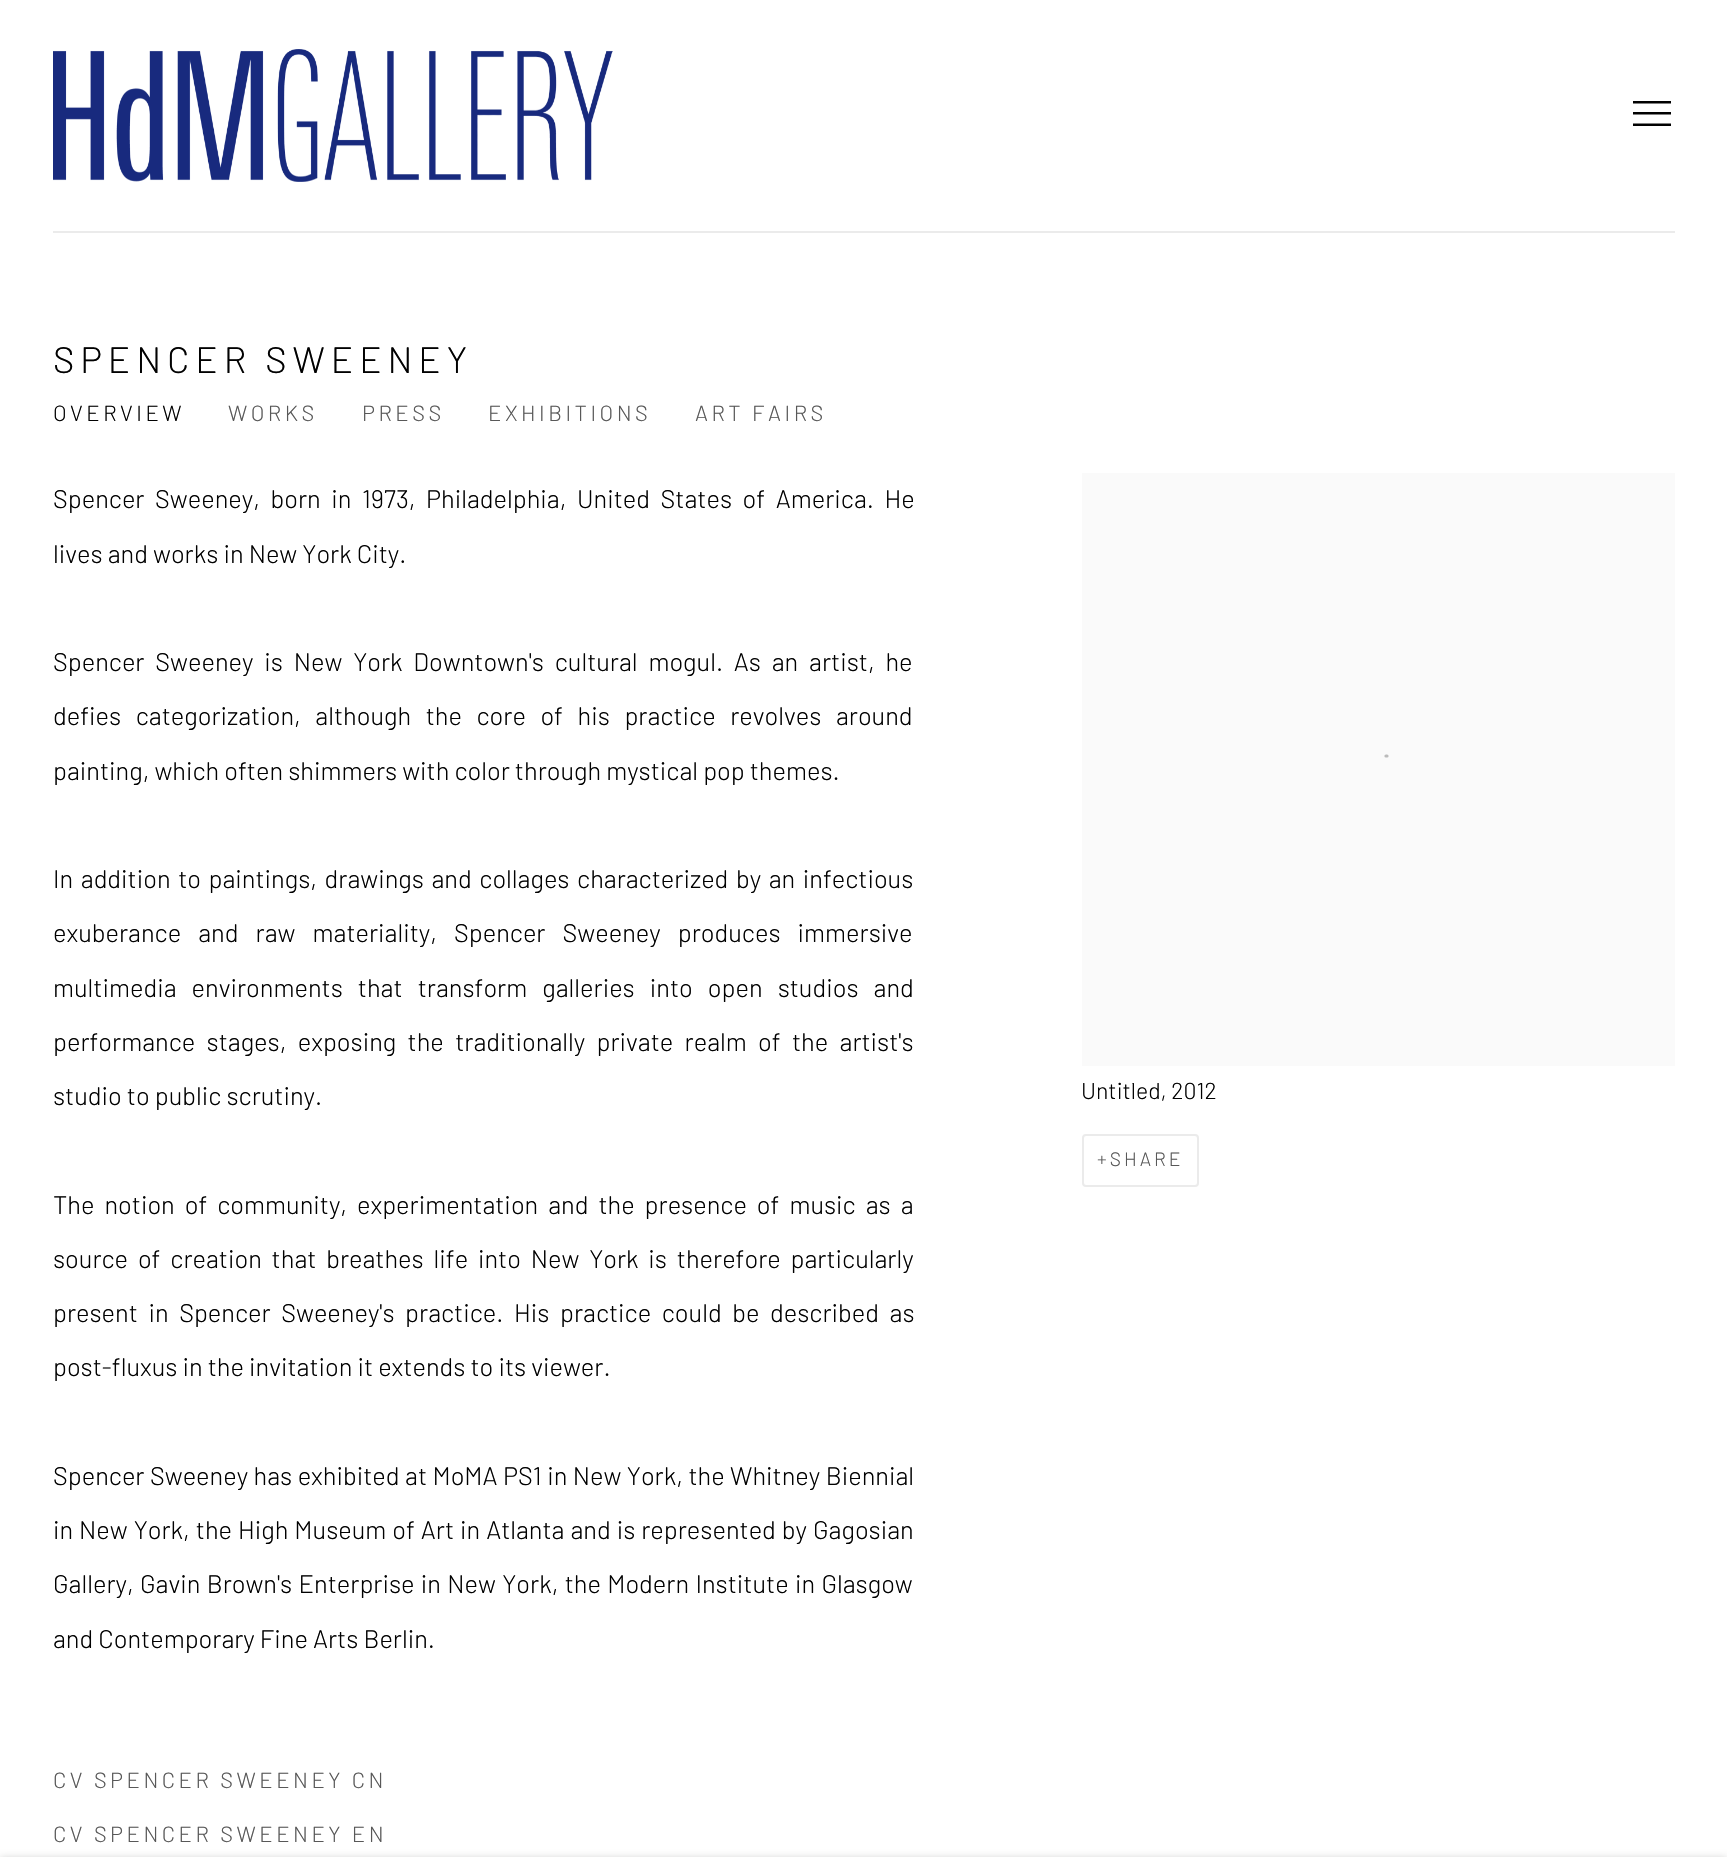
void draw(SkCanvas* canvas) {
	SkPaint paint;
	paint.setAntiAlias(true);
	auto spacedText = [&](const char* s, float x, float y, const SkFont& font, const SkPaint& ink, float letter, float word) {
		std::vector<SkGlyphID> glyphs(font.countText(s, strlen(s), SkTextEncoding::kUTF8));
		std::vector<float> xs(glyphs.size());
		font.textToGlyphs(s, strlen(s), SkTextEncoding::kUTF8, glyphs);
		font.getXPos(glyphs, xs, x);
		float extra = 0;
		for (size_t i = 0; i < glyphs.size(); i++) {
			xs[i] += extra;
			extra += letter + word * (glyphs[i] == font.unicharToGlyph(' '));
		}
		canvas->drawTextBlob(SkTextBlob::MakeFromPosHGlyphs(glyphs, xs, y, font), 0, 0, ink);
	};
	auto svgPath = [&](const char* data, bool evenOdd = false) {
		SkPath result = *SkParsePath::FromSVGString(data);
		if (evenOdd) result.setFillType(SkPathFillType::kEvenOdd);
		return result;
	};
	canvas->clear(0xffffffff);
	paint.setColor(0xffebebeb);
	canvas->drawRect(SkRect::MakeXYWH(53, 231, 1622, 2), paint);
	canvas->drawImageRect(SkImages::DeferredFromEncodedData(SkData::MakeFromFileName("img1.png")), SkRect::MakeXYWH(53, 49, 560, 133), SkSamplingOptions());
	paint.setColor(0xff010101);
	canvas->drawPath(svgPath("M1633 126V123.5H1671V126ZM1633 114.5V112H1671V114.5ZM1633 103.5V101H1671V103.5Z"), paint);
	SkFont f1(fontMgr->matchFamilyStyle("Barlow", SkFontStyle(300, SkFontStyle::kNormal_Width, SkFontStyle::kUpright_Slant)), 36.75);
	f1.setSubpixel(true);
	spacedText("SPENCER SWEENEY", 53, 373, f1, paint, 5.9, 0);
	SkFont f2(fontMgr->matchFamilyStyle("Barlow", SkFontStyle(300, SkFontStyle::kNormal_Width, SkFontStyle::kUpright_Slant)), 21.9);
	f2.setSubpixel(true);
	spacedText("OVERVIEW", 53, 421, f2, paint, 3.5, 0);
	paint.setColor(0xff585858);
	spacedText("WORKS", 228, 421, f2, paint, 3.5, 0);
	spacedText("PRESS", 362, 421, f2, paint, 3.5, 0);
	spacedText("EXHIBITIONS", 488, 421, f2, paint, 3.5, 0);
	spacedText("ART FAIRS", 695, 421, f2, paint, 3.5, 0);
	SkFont f3(fontMgr->matchFamilyStyle("Barlow", SkFontStyle(300, SkFontStyle::kNormal_Width, SkFontStyle::kUpright_Slant)), 25.4);
	f3.setSubpixel(true);
	paint.setColor(0xff010101);
	spacedText("Spencer Sweeney, born in 1973, Philadelphia, United States of America. He", 53, 508, f3, paint, 0, 5.5);
	canvas->drawString("lives and works in New York City.", 53, 563, f3, paint);
	spacedText("Spencer Sweeney is New York Downtown's cultural mogul. As an artist, he", 53, 671, f3, paint, 0, 5.75);
	spacedText("defies categorization, although the core of his practice revolves around", 53, 725, f3, paint, 0, 9.5);
	canvas->drawString("painting, which often shimmers with color through mystical pop themes.", 53, 780, f3, paint);
	spacedText("In addition to paintings, drawings and collages characterized by an infectious", 53, 888, f3, paint, 0, 2.5);
	spacedText("exuberance and raw materiality, Spencer Sweeney produces immersive", 53, 942, f3, paint, 0, 12);
	spacedText("multimedia environments that transform galleries into open studios and", 53, 997, f3, paint, 0, 10);
	spacedText("performance stages, exposing the traditionally private realm of the artist's", 53, 1051, f3, paint, 0, 6.25);
	canvas->drawString("studio to public scrutiny.", 53, 1105, f3, paint);
	spacedText("The notion of community, experimentation and the presence of music as a", 53, 1214, f3, paint, 0, 4.9);
	spacedText("source of creation that breathes life into New York is therefore particularly", 53, 1268, f3, paint, 0, 4.75);
	spacedText("present in Spencer Sweeney's practice. His practice could be described as", 53, 1322, f3, paint, 0, 5.5);
	canvas->drawString("post-fluxus in the invitation it extends to its viewer.", 53, 1376, f3, paint);
	spacedText("Spencer Sweeney has exhibited at MoMA PS1 in New York, the Whitney Biennial", 53, 1485, f3, paint, 0, 0.4);
	spacedText("in New York, the High Museum of Art in Atlanta and is represented by Gagosian", 53, 1539, f3, paint, 0, 0.9);
	spacedText("Gallery, Gavin Brown's Enterprise in New York, the Modern Institute in Glasgow", 53, 1593, f3, paint, 0, 1.25);
	canvas->drawString("and Contemporary Fine Arts Berlin.", 53, 1648, f3, paint);
	paint.setColor(0xff585858);
	spacedText("CV SPENCER SWEENEY CN", 53, 1788, f2, paint, 3.5, 0);
	spacedText("CV SPENCER SWEENEY EN", 53, 1842, f2, paint, 3.5, 0);
	paint.setColor(0xfffafafa);
	canvas->drawRect(SkRect::MakeXYWH(1082, 473, 593, 593), paint);
	paint.setStroke(true);
	paint.setStrokeWidth(3.2);
	paint.setStrokeCap(SkPaint::kRound_Cap);
	paint.setColor(0xffbbbbbb);
	canvas->drawPath(svgPath("M1386 756H1387"), paint);
	SkFont f4(fontMgr->matchFamilyStyle("Barlow", SkFontStyle(300, SkFontStyle::kNormal_Width, SkFontStyle::kUpright_Slant)), 23);
	f4.setSubpixel(true);
	paint.setStroke(false);
	paint.setColor(0xff010101);
	canvas->drawString("Untitled, 2012", 1081, 1099, f4, paint);
	paint.setStroke(true);
	paint.setStrokeWidth(2);
	paint.setStrokeCap(SkPaint::kButt_Cap);
	paint.setColor(0xffebebeb);
	canvas->drawRoundRect(SkRect::MakeXYWH(1083, 1135, 115, 51), 3, 3, paint);
	SkFont f5(fontMgr->matchFamilyStyle("Barlow", SkFontStyle(300, SkFontStyle::kNormal_Width, SkFontStyle::kUpright_Slant)), 19.25);
	f5.setSubpixel(true);
	paint.setStroke(false);
	paint.setColor(0xff585858);
	spacedText("+SHARE", 1097, 1166, f5, paint, 3, 0);
	paint.setColor(0x3b000000);
	paint.setMaskFilter(SkMaskFilter::MakeBlur(kNormal_SkBlurStyle, 4.5));
	canvas->drawRect(SkRect::MakeXYWH(0, 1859, 1727, 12), paint);
	paint.setMaskFilter(nullptr);
}
